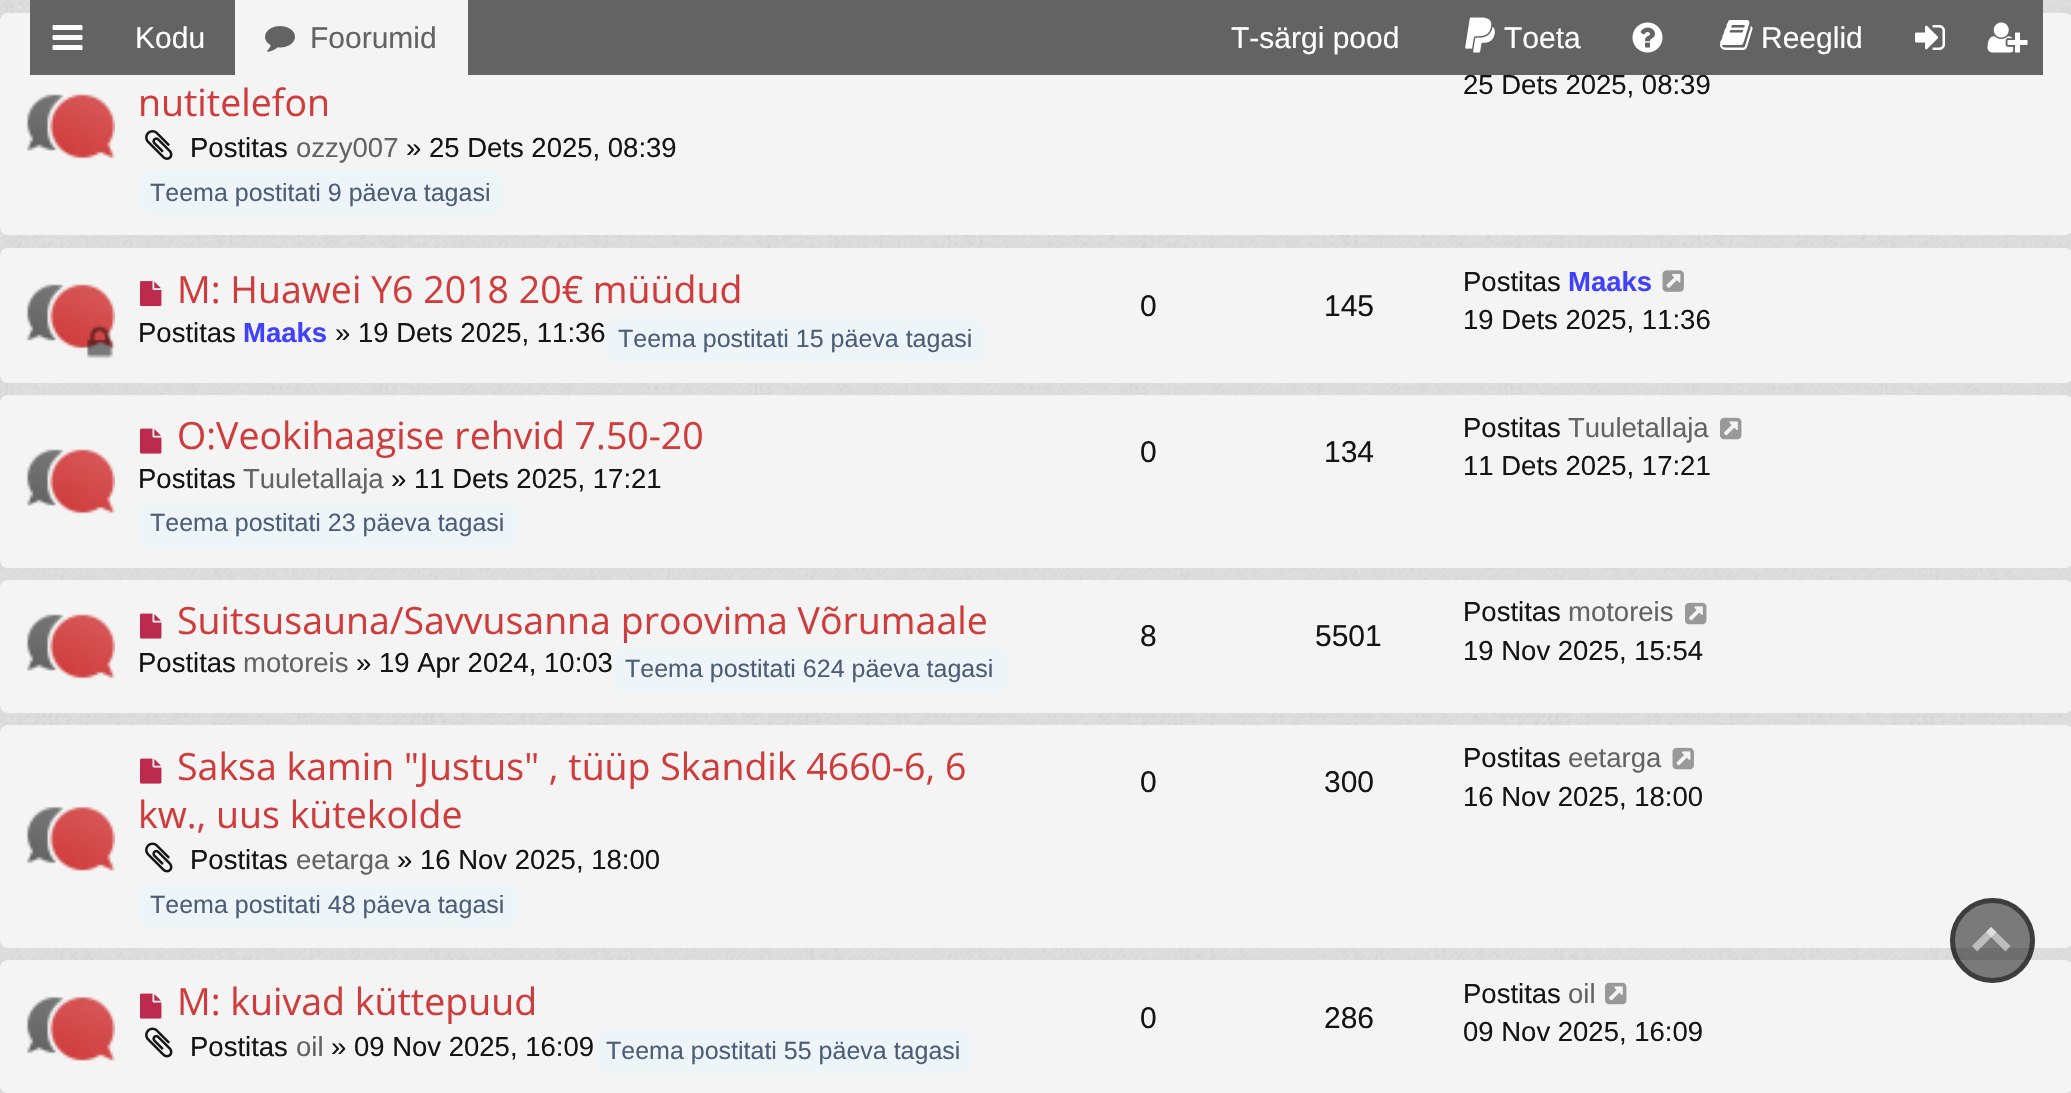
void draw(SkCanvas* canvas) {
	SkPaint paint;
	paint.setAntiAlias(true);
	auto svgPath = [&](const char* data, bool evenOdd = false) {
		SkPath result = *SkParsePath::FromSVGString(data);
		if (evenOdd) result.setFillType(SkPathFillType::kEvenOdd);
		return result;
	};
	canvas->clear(0xffe0e0e0);
	canvas->drawImageRect(SkImages::DeferredFromEncodedData(SkData::MakeFromFileName("img1.png")), SkRect::MakeXYWH(0, 0, 2071, 1093), SkSamplingOptions());
	paint.setColor(0xfff4f4f4);
	canvas->drawRoundRect(SkRect::MakeXYWH(0, 13, 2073, 222), 8, 8, paint);
	SkFont f1(fontMgr->matchFamilyStyle("Liberation Sans", SkFontStyle::Normal()), 27.5);
	f1.setSubpixel(true);
	paint.setColor(0xff141414);
	canvas->drawString("25 Dets 2025, 08:39", 1463, 94, f1, paint);
	paint.setColor(0xff636363);
	canvas->drawRect(SkRect::MakeXYWH(30, 0, 2013, 75), paint);
	canvas->drawImageRect(SkImages::DeferredFromEncodedData(SkData::MakeFromFileName("img2.png")), SkRect::MakeXYWH(52, 25, 31, 25), SkSamplingOptions());
	SkFont f2(fontMgr->matchFamilyStyle("Liberation Sans", SkFontStyle::Normal()), 30);
	f2.setSubpixel(true);
	paint.setColor(0xffffffff);
	canvas->drawString("Kodu", 135, 48, f2, paint);
	paint.setColor(0xfff4f4f4);
	canvas->drawRect(SkRect::MakeXYWH(235, 0, 233, 75), paint);
	canvas->drawImageRect(SkImages::DeferredFromEncodedData(SkData::MakeFromFileName("img3.png")), SkRect::MakeXYWH(265, 26, 30, 26), SkSamplingOptions());
	paint.setColor(0xff636363);
	canvas->drawString("Foorumid", 310, 48, f2, paint);
	paint.setColor(0xffffffff);
	canvas->drawString("T-särgi pood", 1231, 48, f2, paint);
	canvas->drawImageRect(SkImages::DeferredFromEncodedData(SkData::MakeFromFileName("img4.png")), SkRect::MakeXYWH(1465, 17, 30, 36), SkSamplingOptions());
	canvas->drawString("Toeta", 1504, 48, f2, paint);
	canvas->drawImageRect(SkImages::DeferredFromEncodedData(SkData::MakeFromFileName("img5.png")), SkRect::MakeXYWH(1632, 22, 31, 31), SkSamplingOptions());
	canvas->drawImageRect(SkImages::DeferredFromEncodedData(SkData::MakeFromFileName("img6.png")), SkRect::MakeXYWH(1720, 20, 33, 30), SkSamplingOptions());
	canvas->drawString("Reeglid", 1761, 48, f2, paint);
	canvas->drawImageRect(SkImages::DeferredFromEncodedData(SkData::MakeFromFileName("img7.png")), SkRect::MakeXYWH(1915, 25, 30, 25), SkSamplingOptions());
	canvas->drawImageRect(SkImages::DeferredFromEncodedData(SkData::MakeFromFileName("img8.png")), SkRect::MakeXYWH(1987, 22, 41, 31), SkSamplingOptions());
	canvas->drawImageRect(SkImages::DeferredFromEncodedData(SkData::MakeFromFileName("img9.png")), SkRect::MakeXYWH(26, 94, 89, 65), SkSamplingOptions());
	SkFont f3(fontMgr->matchFamilyStyle("Open Sans", SkFontStyle::Normal()), 37.5);
	f3.setSubpixel(true);
	paint.setColor(0xffd03c3c);
	canvas->drawString("nutitelefon", 138, 116, f3, paint);
	canvas->drawImageRect(SkImages::DeferredFromEncodedData(SkData::MakeFromFileName("img10.png")), SkRect::MakeXYWH(145, 130, 28, 30), SkSamplingOptions());
	paint.setColor(0xff141414);
	canvas->drawString("Postitas", 190, 157, f1, paint);
	paint.setColor(0xff636363);
	canvas->drawString("ozzy007", 296, 157, f1, paint);
	paint.setColor(0xff141414);
	canvas->drawString("» 25 Dets 2025, 08:39", 406, 157, f1, paint);
	paint.setColor(0xffeef5f9);
	canvas->drawRoundRect(SkRect::MakeXYWH(138, 170, 365, 45), 15, 15, paint);
	SkFont f4(fontMgr->matchFamilyStyle("Liberation Sans", SkFontStyle::Normal()), 25);
	f4.setSubpixel(true);
	paint.setColor(0xff4c5d77);
	canvas->drawString("Teema postitati 9 päeva tagasi", 150, 201, f4, paint);
	paint.setColor(0xfff4f4f4);
	canvas->drawRoundRect(SkRect::MakeXYWH(0, 248, 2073, 135), 8, 8, paint);
	canvas->drawImageRect(SkImages::DeferredFromEncodedData(SkData::MakeFromFileName("img11.png")), SkRect::MakeXYWH(26, 284, 89, 75), SkSamplingOptions());
	canvas->drawImageRect(SkImages::DeferredFromEncodedData(SkData::MakeFromFileName("img12.png")), SkRect::MakeXYWH(140, 281, 22, 26), SkSamplingOptions());
	paint.setColor(0xffd03c3c);
	canvas->drawString("M: Huawei Y6 2018 20€ müüdud", 177, 303, f3, paint);
	paint.setColor(0xff141414);
	canvas->drawString("Postitas", 138, 342, f1, paint);
	SkFont f5(fontMgr->matchFamilyStyle("Liberation Sans", SkFontStyle::Bold()), 27.5);
	f5.setSubpixel(true);
	paint.setColor(0xff4040ff);
	canvas->drawString("Maaks", 243, 342, f5, paint);
	paint.setColor(0xff141414);
	canvas->drawString("» 19 Dets 2025, 11:36", 335, 342, f1, paint);
	paint.setColor(0xffeef5f9);
	canvas->drawRoundRect(SkRect::MakeXYWH(605, 318, 380, 45), 15, 15, paint);
	paint.setColor(0xff4c5d77);
	canvas->drawString("Teema postitati 15 päeva tagasi", 618, 347, f4, paint);
	paint.setColor(0xff141414);
	canvas->drawString("0", 1140, 316, f2, paint);
	canvas->drawString("145", 1324, 316, f2, paint);
	canvas->drawString("Postitas", 1463, 291, f1, paint);
	paint.setColor(0xff4040ff);
	canvas->drawString("Maaks", 1568, 291, f5, paint);
	canvas->drawImageRect(SkImages::DeferredFromEncodedData(SkData::MakeFromFileName("img13.png")), SkRect::MakeXYWH(1662, 270, 22, 22), SkSamplingOptions());
	paint.setColor(0xff141414);
	canvas->drawString("19 Dets 2025, 11:36", 1463, 329, f1, paint);
	paint.setColor(0xfff4f4f4);
	canvas->drawRoundRect(SkRect::MakeXYWH(0, 395, 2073, 173), 8, 8, paint);
	canvas->drawImageRect(SkImages::DeferredFromEncodedData(SkData::MakeFromFileName("img9.png")), SkRect::MakeXYWH(26, 449, 89, 65), SkSamplingOptions());
	canvas->drawImageRect(SkImages::DeferredFromEncodedData(SkData::MakeFromFileName("img14.png")), SkRect::MakeXYWH(140, 428, 22, 26), SkSamplingOptions());
	paint.setColor(0xffd03c3c);
	canvas->drawString("O:Veokihaagise rehvid 7.50-20", 177, 449, f3, paint);
	paint.setColor(0xff141414);
	canvas->drawString("Postitas", 138, 488, f1, paint);
	paint.setColor(0xff636363);
	canvas->drawString("Tuuletallaja", 243, 488, f1, paint);
	paint.setColor(0xff141414);
	canvas->drawString("» 11 Dets 2025, 17:21", 391, 488, f1, paint);
	paint.setColor(0xffeef5f9);
	canvas->drawRoundRect(SkRect::MakeXYWH(138, 503, 380, 45), 15, 15, paint);
	paint.setColor(0xff4c5d77);
	canvas->drawString("Teema postitati 23 päeva tagasi", 150, 531, f4, paint);
	paint.setColor(0xff141414);
	canvas->drawString("0", 1140, 462, f2, paint);
	canvas->drawString("134", 1324, 462, f2, paint);
	canvas->drawString("Postitas", 1463, 437, f1, paint);
	paint.setColor(0xff636363);
	canvas->drawString("Tuuletallaja", 1568, 437, f1, paint);
	canvas->drawImageRect(SkImages::DeferredFromEncodedData(SkData::MakeFromFileName("img15.png")), SkRect::MakeXYWH(1720, 417, 22, 23), SkSamplingOptions());
	paint.setColor(0xff141414);
	canvas->drawString("11 Dets 2025, 17:21", 1463, 475, f1, paint);
	paint.setColor(0xfff4f4f4);
	canvas->drawRoundRect(SkRect::MakeXYWH(0, 580, 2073, 133), 8, 8, paint);
	canvas->drawImageRect(SkImages::DeferredFromEncodedData(SkData::MakeFromFileName("img9.png")), SkRect::MakeXYWH(26, 614, 89, 65), SkSamplingOptions());
	canvas->drawImageRect(SkImages::DeferredFromEncodedData(SkData::MakeFromFileName("img14.png")), SkRect::MakeXYWH(140, 613, 22, 26), SkSamplingOptions());
	paint.setColor(0xffd03c3c);
	canvas->drawString("Suitsusauna/Savvusanna proovima Võrumaale", 177, 634, f3, paint);
	paint.setColor(0xff141414);
	canvas->drawString("Postitas", 138, 672, f1, paint);
	paint.setColor(0xff636363);
	canvas->drawString("motoreis", 243, 672, f1, paint);
	paint.setColor(0xff141414);
	canvas->drawString("» 19 Apr 2024, 10:03", 356, 672, f1, paint);
	paint.setColor(0xffeef5f9);
	canvas->drawRoundRect(SkRect::MakeXYWH(613, 648, 395, 45), 15, 15, paint);
	paint.setColor(0xff4c5d77);
	canvas->drawString("Teema postitati 624 päeva tagasi", 625, 677, f4, paint);
	paint.setColor(0xff141414);
	canvas->drawString("8", 1140, 646, f2, paint);
	canvas->drawString("5501", 1315, 646, f2, paint);
	canvas->drawString("Postitas", 1463, 621, f1, paint);
	paint.setColor(0xff636363);
	canvas->drawString("motoreis", 1568, 621, f1, paint);
	canvas->drawImageRect(SkImages::DeferredFromEncodedData(SkData::MakeFromFileName("img15.png")), SkRect::MakeXYWH(1685, 602, 22, 23), SkSamplingOptions());
	paint.setColor(0xff141414);
	canvas->drawString("19 Nov 2025, 15:54", 1463, 660, f1, paint);
	paint.setColor(0xfff4f4f4);
	canvas->drawRoundRect(SkRect::MakeXYWH(0, 725, 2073, 223), 8, 8, paint);
	canvas->drawImageRect(SkImages::DeferredFromEncodedData(SkData::MakeFromFileName("img16.png")), SkRect::MakeXYWH(26, 806, 89, 65), SkSamplingOptions());
	canvas->drawImageRect(SkImages::DeferredFromEncodedData(SkData::MakeFromFileName("img14.png")), SkRect::MakeXYWH(140, 758, 22, 26), SkSamplingOptions());
	paint.setColor(0xffd03c3c);
	canvas->drawString("Saksa kamin \"Justus\" , tüüp Skandik 4660-6, 6", 177, 780, f3, paint);
	canvas->drawString("kw., uus kütekolde", 138, 828, f3, paint);
	canvas->drawImageRect(SkImages::DeferredFromEncodedData(SkData::MakeFromFileName("img17.png")), SkRect::MakeXYWH(145, 842, 28, 31), SkSamplingOptions());
	paint.setColor(0xff141414);
	canvas->drawString("Postitas", 190, 869, f1, paint);
	paint.setColor(0xff636363);
	canvas->drawString("eetarga", 296, 869, f1, paint);
	paint.setColor(0xff141414);
	canvas->drawString("» 16 Nov 2025, 18:00", 397, 869, f1, paint);
	paint.setColor(0xffeef5f9);
	canvas->drawRoundRect(SkRect::MakeXYWH(138, 883, 380, 45), 15, 15, paint);
	paint.setColor(0xff4c5d77);
	canvas->drawString("Teema postitati 48 päeva tagasi", 150, 913, f4, paint);
	paint.setColor(0xff141414);
	canvas->drawString("0", 1140, 792, f2, paint);
	canvas->drawString("300", 1324, 792, f2, paint);
	canvas->drawString("Postitas", 1463, 767, f1, paint);
	paint.setColor(0xff636363);
	canvas->drawString("eetarga", 1568, 767, f1, paint);
	canvas->drawImageRect(SkImages::DeferredFromEncodedData(SkData::MakeFromFileName("img18.png")), SkRect::MakeXYWH(1672, 747, 22, 23), SkSamplingOptions());
	paint.setColor(0xff141414);
	canvas->drawString("16 Nov 2025, 18:00", 1463, 806, f1, paint);
	paint.setColor(0xfff4f4f4);
	canvas->drawRoundRect(SkRect::MakeXYWH(0, 960, 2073, 133), 8, 8, paint);
	canvas->drawImageRect(SkImages::DeferredFromEncodedData(SkData::MakeFromFileName("img16.png")), SkRect::MakeXYWH(26, 996, 89, 65), SkSamplingOptions());
	canvas->drawImageRect(SkImages::DeferredFromEncodedData(SkData::MakeFromFileName("img14.png")), SkRect::MakeXYWH(140, 993, 22, 26), SkSamplingOptions());
	paint.setColor(0xffd03c3c);
	canvas->drawString("M: kuivad küttepuud", 177, 1015, f3, paint);
	canvas->drawImageRect(SkImages::DeferredFromEncodedData(SkData::MakeFromFileName("img17.png")), SkRect::MakeXYWH(145, 1027, 28, 31), SkSamplingOptions());
	paint.setColor(0xff141414);
	canvas->drawString("Postitas", 190, 1056, f1, paint);
	paint.setColor(0xff636363);
	canvas->drawString("oil", 296, 1056, f1, paint);
	paint.setColor(0xff141414);
	canvas->drawString("» 09 Nov 2025, 16:09", 331, 1056, f1, paint);
	paint.setColor(0xffeef5f9);
	canvas->drawRoundRect(SkRect::MakeXYWH(595, 1028, 378, 45), 15, 15, paint);
	paint.setColor(0xff4c5d77);
	canvas->drawString("Teema postitati 55 päeva tagasi", 606, 1059, f4, paint);
	paint.setColor(0xff141414);
	canvas->drawString("0", 1140, 1028, f2, paint);
	canvas->drawString("286", 1324, 1028, f2, paint);
	canvas->drawString("Postitas", 1463, 1003, f1, paint);
	paint.setColor(0xff636363);
	canvas->drawString("oil", 1568, 1003, f1, paint);
	canvas->drawImageRect(SkImages::DeferredFromEncodedData(SkData::MakeFromFileName("img15.png")), SkRect::MakeXYWH(1605, 982, 22, 23), SkSamplingOptions());
	paint.setColor(0xff141414);
	canvas->drawString("09 Nov 2025, 16:09", 1463, 1041, f1, paint);
	paint.setColor(0x80000000);
	canvas->drawCircle(1992.5, 940.5, 42.5, paint);
	paint.setStroke(true);
	paint.setStrokeWidth(5);
	canvas->drawCircle(1992.5, 940.5, 40, paint);
	paint.setStroke(false);
	paint.setColor(0x80ffffff);
	canvas->drawPath(svgPath("M1996.5 932L1977 951.5L1972 946L1991 927Z"), paint);
	canvas->drawPath(svgPath("M2010.5 946L2005.5 951.5L1986 932L1991 927Z"), paint);
}
